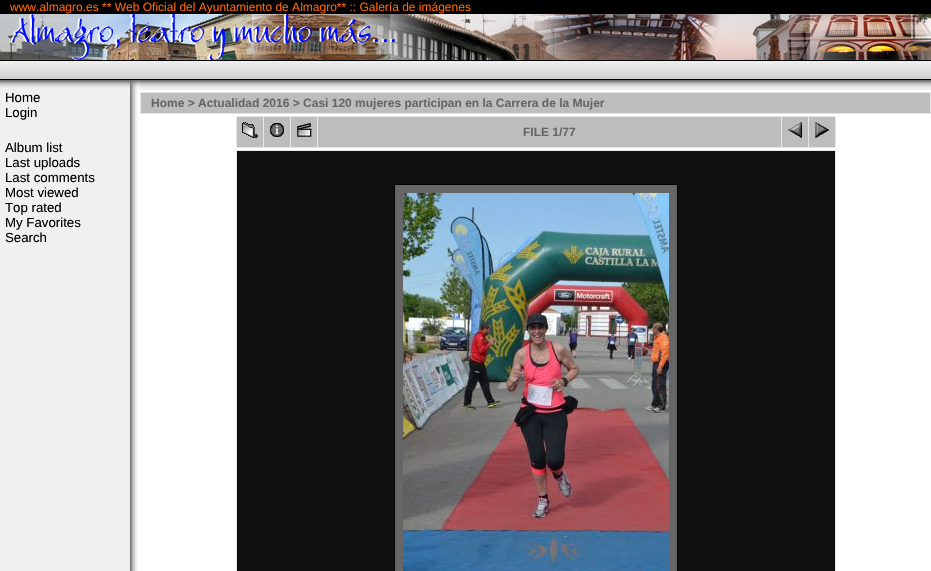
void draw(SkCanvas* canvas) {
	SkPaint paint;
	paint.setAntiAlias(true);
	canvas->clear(0xff000000);
	SkFont f1(fontMgr->matchFamilyStyle("Liberation Sans", SkFontStyle::Normal()), 12);
	f1.setSubpixel(true);
	paint.setColor(0xffff6600);
	canvas->drawString("www.almagro.es ** Web Oficial del Ayuntamiento de Almagro** :: Galería de imágenes", 10, 11, f1, paint);
	canvas->drawImageRect(SkImages::DeferredFromEncodedData(SkData::MakeFromFileName("img1.png")), SkRect::MakeXYWH(0, 14, 931, 46), SkSamplingOptions());
	canvas->drawImageRect(SkImages::DeferredFromEncodedData(SkData::MakeFromFileName("img2.png")), SkRect::MakeXYWH(0, 60, 931, 20), SkSamplingOptions());
	paint.setColor(0xfff0f0f0);
	canvas->drawRect(SkRect::MakeXYWH(0, 88, 130, 483), paint);
	canvas->drawImageRect(SkImages::DeferredFromEncodedData(SkData::MakeFromFileName("img3.png")), SkRect::MakeXYWH(0, 80, 130, 8), SkSamplingOptions());
	canvas->drawImageRect(SkImages::DeferredFromEncodedData(SkData::MakeFromFileName("img4.png")), SkRect::MakeXYWH(130, 80, 10, 10), SkSamplingOptions());
	canvas->drawImageRect(SkImages::DeferredFromEncodedData(SkData::MakeFromFileName("img5.png")), SkRect::MakeXYWH(140, 80, 791, 10), SkSamplingOptions());
	SkFont f2(fontMgr->matchFamilyStyle("Liberation Sans", SkFontStyle::Normal()), 13.25);
	f2.setSubpixel(true);
	paint.setColor(0xff000000);
	canvas->drawString("Home", 5, 102, f2, paint);
	canvas->drawString("Login", 5, 117, f2, paint);
	canvas->drawString("Album list", 5, 152, f2, paint);
	canvas->drawString("Last uploads", 5, 167, f2, paint);
	canvas->drawString("Last comments", 5, 182, f2, paint);
	canvas->drawString("Most viewed", 5, 197, f2, paint);
	canvas->drawString("Top rated", 5, 212, f2, paint);
	canvas->drawString("My Favorites", 5, 227, f2, paint);
	canvas->drawString("Search", 5, 242, f2, paint);
	canvas->drawImageRect(SkImages::DeferredFromEncodedData(SkData::MakeFromFileName("img6.png")), SkRect::MakeXYWH(130, 90, 10, 481), SkSamplingOptions());
	paint.setColor(0xffffffff);
	canvas->drawRect(SkRect::MakeXYWH(140, 90, 791, 481), paint);
	paint.setColor(0xffe6e6e6);
	canvas->drawRect(SkRect::MakeXYWH(140, 92, 791, 22), paint);
	paint.setColor(0xffbdbdbd);
	canvas->drawRect(SkRect::MakeXYWH(141, 93, 789, 20), paint);
	SkFont f3(fontMgr->matchFamilyStyle("Liberation Sans", SkFontStyle::Bold()), 12);
	f3.setSubpixel(true);
	paint.setColor(0xff666666);
	canvas->drawString("Home > Actualidad 2016 > Casi 120 mujeres participan en la Carrera de la Mujer", 151, 107, f3, paint);
	paint.setColor(0xffe6e6e6);
	canvas->drawRect(SkRect::MakeXYWH(236, 116, 600, 32), paint);
	paint.setColor(0xffbdbdbd);
	canvas->drawRect(SkRect::MakeXYWH(237, 117, 26, 30), paint);
	canvas->drawImageRect(SkImages::DeferredFromEncodedData(SkData::MakeFromFileName("img7.png")), SkRect::MakeXYWH(242, 122, 16, 16), SkSamplingOptions());
	canvas->drawRect(SkRect::MakeXYWH(264, 117, 26, 30), paint);
	canvas->drawImageRect(SkImages::DeferredFromEncodedData(SkData::MakeFromFileName("img8.png")), SkRect::MakeXYWH(270, 123, 14, 14), SkSamplingOptions());
	canvas->drawRect(SkRect::MakeXYWH(291, 117, 26, 30), paint);
	canvas->drawImageRect(SkImages::DeferredFromEncodedData(SkData::MakeFromFileName("img9.png")), SkRect::MakeXYWH(297, 123, 15, 14), SkSamplingOptions());
	canvas->drawRect(SkRect::MakeXYWH(318, 117, 463, 30), paint);
	paint.setColor(0xff666666);
	canvas->drawString("FILE 1/77", 523, 136, f3, paint);
	paint.setColor(0xffbdbdbd);
	canvas->drawRect(SkRect::MakeXYWH(782, 117, 26, 30), paint);
	canvas->drawImageRect(SkImages::DeferredFromEncodedData(SkData::MakeFromFileName("img10.png")), SkRect::MakeXYWH(788, 122, 14, 16), SkSamplingOptions());
	canvas->drawRect(SkRect::MakeXYWH(809, 117, 26, 30), paint);
	canvas->drawImageRect(SkImages::DeferredFromEncodedData(SkData::MakeFromFileName("img11.png")), SkRect::MakeXYWH(815, 122, 14, 16), SkSamplingOptions());
	paint.setColor(0xffe6e6e6);
	canvas->drawRect(SkRect::MakeXYWH(236, 150, 600, 421), paint);
	paint.setColor(0xff111111);
	canvas->drawRect(SkRect::MakeXYWH(237, 151, 598, 420), paint);
	paint.setColor(0xff666666);
	canvas->drawRect(SkRect::MakeXYWH(394.5, 184.5, 283, 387), paint);
	paint.setStroke(true);
	paint.setStrokeWidth(1);
	paint.setColor(0xff000000);
	canvas->drawRect(SkRect::MakeXYWH(394.5, 184.5, 283, 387), paint);
	canvas->drawImageRect(SkImages::DeferredFromEncodedData(SkData::MakeFromFileName("img12.png")), SkRect::MakeXYWH(403, 193, 266, 378), SkSamplingOptions());
}
